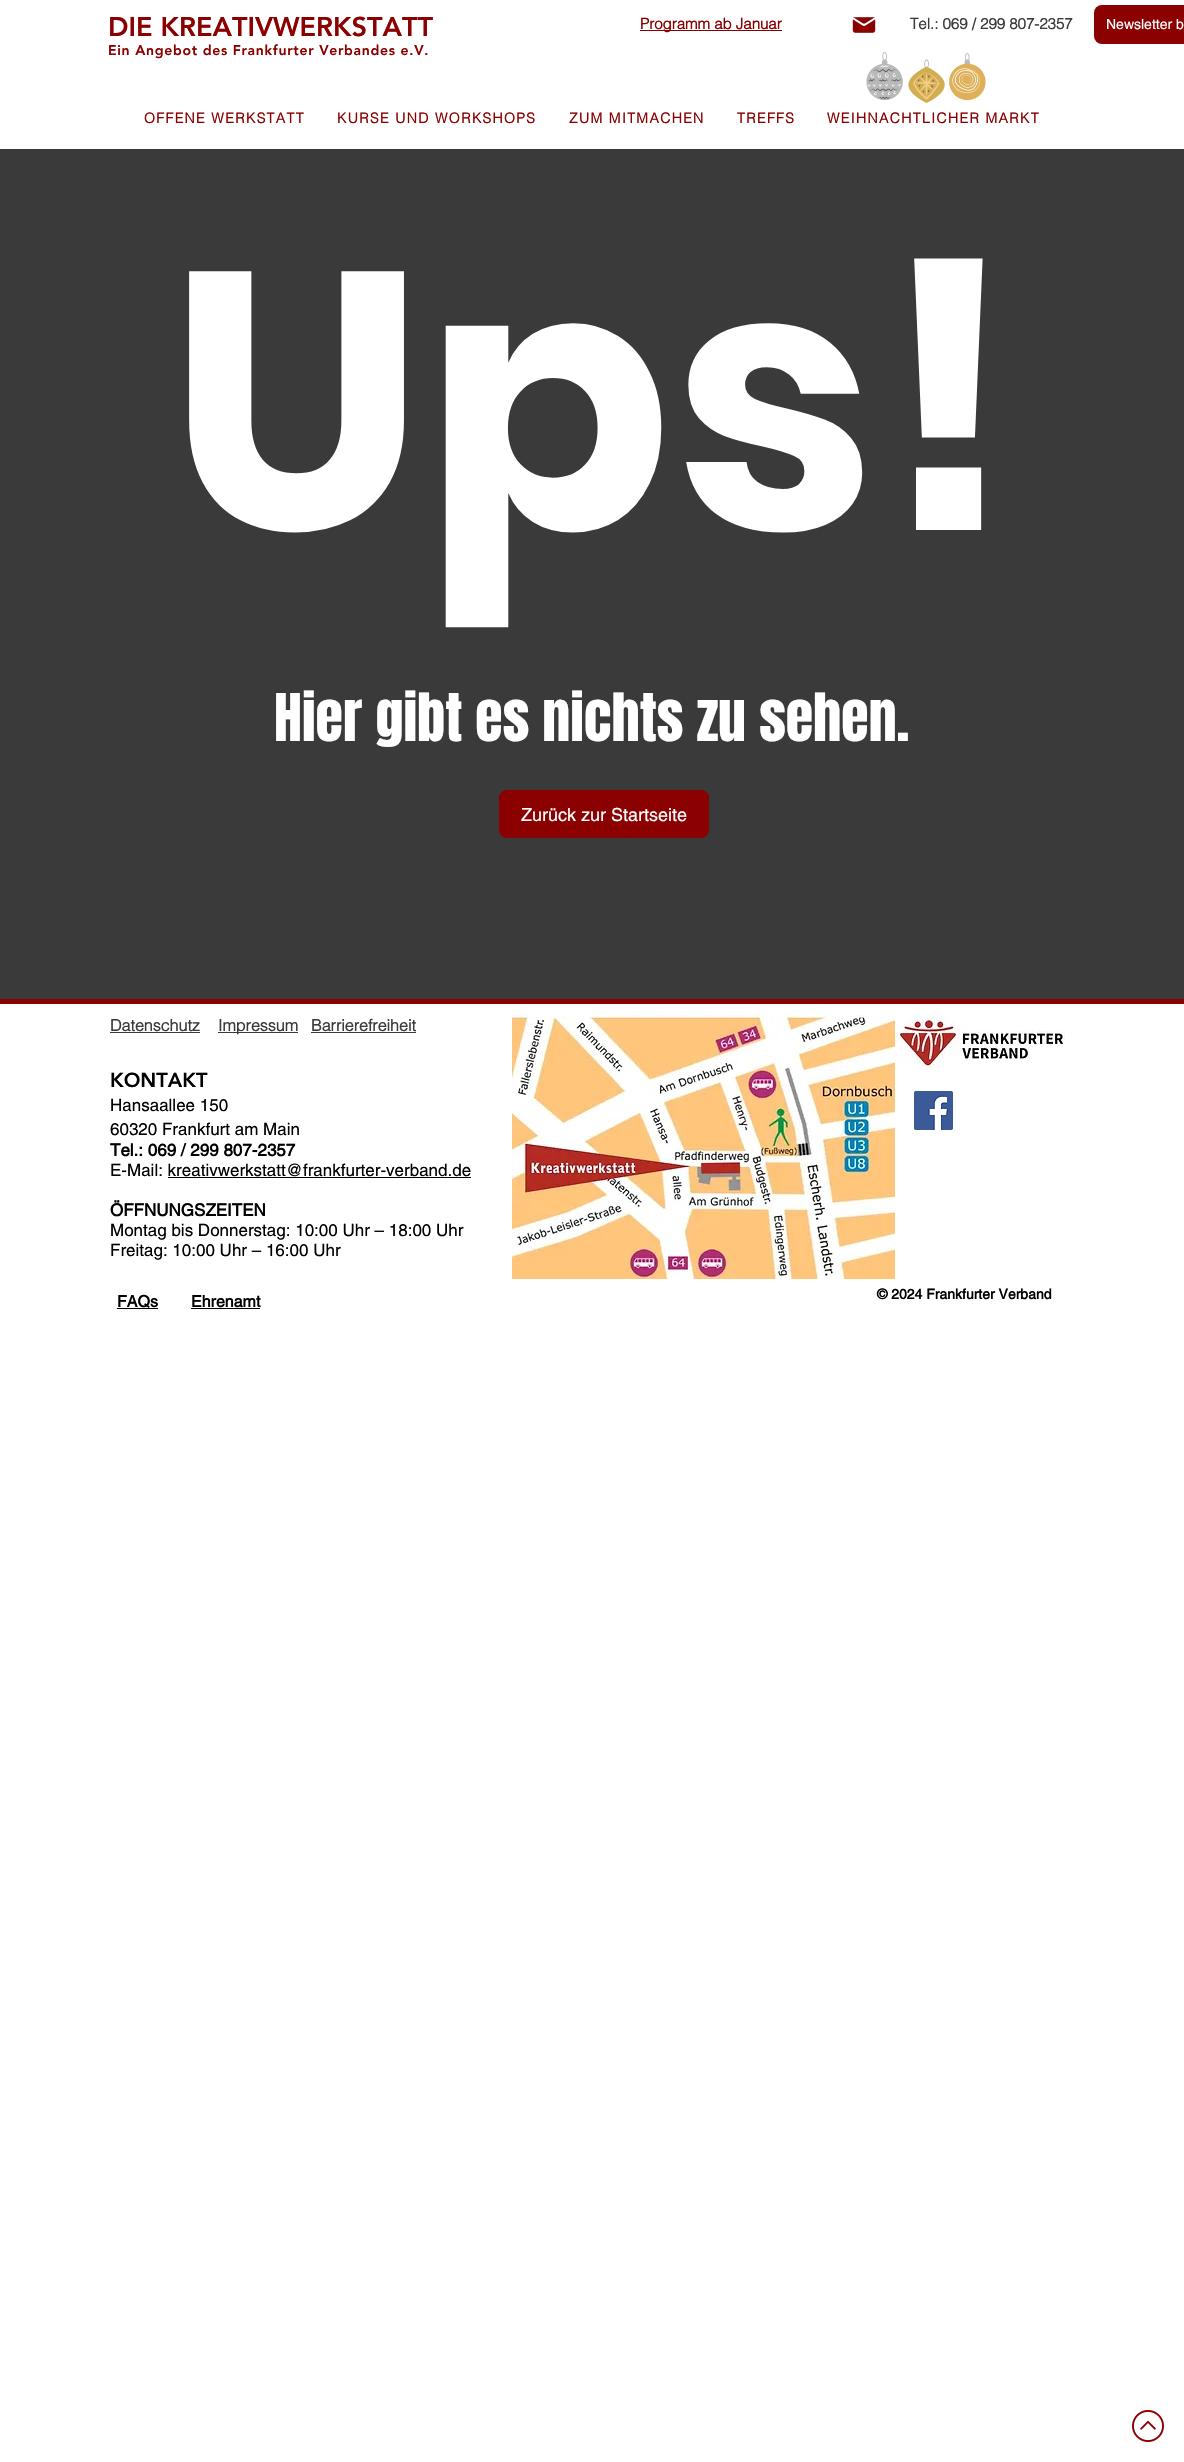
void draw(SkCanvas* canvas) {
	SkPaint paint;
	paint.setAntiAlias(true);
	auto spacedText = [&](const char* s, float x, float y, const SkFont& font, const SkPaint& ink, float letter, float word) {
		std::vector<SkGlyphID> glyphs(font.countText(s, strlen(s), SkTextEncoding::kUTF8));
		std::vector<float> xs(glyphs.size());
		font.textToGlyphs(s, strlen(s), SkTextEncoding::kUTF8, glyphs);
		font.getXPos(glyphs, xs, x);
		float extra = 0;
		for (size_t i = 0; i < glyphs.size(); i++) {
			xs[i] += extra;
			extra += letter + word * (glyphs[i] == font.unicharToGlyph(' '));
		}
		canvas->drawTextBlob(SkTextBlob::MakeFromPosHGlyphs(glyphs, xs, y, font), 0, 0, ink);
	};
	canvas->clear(0xffffffff);
	SkFont f1(fontMgr->matchFamilyStyle("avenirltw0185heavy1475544", SkFontStyle(900, SkFontStyle::kNormal_Width, SkFontStyle::kUpright_Slant)), 27);
	f1.setSubpixel(true);
	paint.setColor(0xff8b0000);
	canvas->drawString("DIE KREATIVWERKSTATT", 108, 36, f1, paint);
	SkFont f2(fontMgr->matchFamilyStyle("avenirltw0185heavy1475544", SkFontStyle(900, SkFontStyle::kNormal_Width, SkFontStyle::kUpright_Slant)), 14);
	f2.setSubpixel(true);
	spacedText("Ein Angebot des Frankfurter Verbandes e.V.", 108, 55, f2, paint, 0.7, 0);
	canvas->drawRect(SkRect::MakeXYWH(640, 30, 142, 1), paint);
	SkFont f3(fontMgr->matchFamilyStyle("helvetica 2", SkFontStyle::Bold()), 15);
	f3.setSubpixel(true);
	canvas->drawString("Programm ab Januar", 640, 29, f3, paint);
	canvas->drawImageRect(SkImages::DeferredFromEncodedData(SkData::MakeFromFileName("img1.png")), SkRect::MakeXYWH(852, 17, 24, 16), SkSamplingOptions());
	paint.setColor(0xff3b3a3a);
	canvas->drawString("Tel.: 069 / 299 807-2357", 910, 29, f3, paint);
	paint.setColor(0xff8b0000);
	canvas->drawRoundRect(SkRect::MakeXYWH(1094, 5, 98, 39), 8, 8, paint);
	SkFont f4(fontMgr->matchFamilyStyle("helvetica", SkFontStyle::Normal()), 14);
	f4.setSubpixel(true);
	paint.setColor(0xffffffff);
	canvas->drawString("Newsletter b", 1106, 29, f4, paint);
	canvas->drawImageRect(SkImages::DeferredFromEncodedData(SkData::MakeFromFileName("img2.png")), SkRect::MakeXYWH(866, 52, 120, 51), SkSamplingOptions());
	SkFont f5(fontMgr->matchFamilyStyle("helvetica 2", SkFontStyle::Bold()), 14);
	f5.setSubpixel(true);
	paint.setColor(0xff8b0000);
	spacedText("OFFENE WERKSTATT", 144, 123, f5, paint, 1.4, 0);
	spacedText("KURSE UND WORKSHOPS", 337, 123, f5, paint, 1.4, 0);
	spacedText("ZUM MITMACHEN", 569, 123, f5, paint, 1.4, 0);
	spacedText("TREFFS", 737, 123, f5, paint, 1.4, 0);
	spacedText("WEIHNACHTLICHER MARKT", 827, 123, f5, paint, 1.4, 0);
	paint.setColor(0xff3b3a3a);
	canvas->drawRect(SkRect::MakeXYWH(0, 149, 1184, 850), paint);
	SkFont f6(fontMgr->matchFamilyStyle("Poppins", SkFontStyle::Bold()), 366);
	f6.setSubpixel(true);
	paint.setColor(0xffffffff);
	canvas->drawString("Ups!", 169, 530, f6, paint);
	SkFont f7(fontMgr->matchFamilyStyle("Anton", SkFontStyle::Normal()), 56);
	f7.setSubpixel(true);
	canvas->drawString("Hier gibt es nichts zu sehen.", 274, 741, f7, paint);
	paint.setColor(0xff8b0000);
	canvas->drawRoundRect(SkRect::MakeXYWH(499, 790, 210, 48), 8, 8, paint);
	SkFont f8(fontMgr->matchFamilyStyle("helvetica", SkFontStyle::Normal()), 18);
	f8.setSubpixel(true);
	paint.setColor(0xffffffff);
	canvas->drawString("Zurück zur Startseite", 521, 821, f8, paint);
	paint.setColor(0xff8b0000);
	canvas->drawRect(SkRect::MakeXYWH(0, 999, 1184, 5), paint);
	SkFont f9(fontMgr->matchFamilyStyle("helvetica 2", SkFontStyle::Bold()), 16);
	f9.setSubpixel(true);
	paint.setColor(0xff3b3a3a);
	canvas->drawString("Datenschutz", 110, 1031, f9, paint);
	canvas->drawRect(SkRect::MakeXYWH(110, 1032, 90, 1), paint);
	canvas->drawRect(SkRect::MakeXYWH(218, 1032, 80, 1), paint);
	canvas->drawString("Impressum", 218, 1031, f9, paint);
	canvas->drawString("Barrierefreiheit", 311, 1031, f9, paint);
	canvas->drawRect(SkRect::MakeXYWH(311, 1032, 105, 1), paint);
	canvas->drawImageRect(SkImages::DeferredFromEncodedData(SkData::MakeFromFileName("img3.png")), SkRect::MakeXYWH(512, 1015, 383, 264), SkSamplingOptions());
	canvas->drawImageRect(SkImages::DeferredFromEncodedData(SkData::MakeFromFileName("img4.png")), SkRect::MakeXYWH(895, 1015, 170, 54), SkSamplingOptions());
	SkFont f10(fontMgr->matchFamilyStyle("avenirltw0185heavy1475544", SkFontStyle(900, SkFontStyle::kNormal_Width, SkFontStyle::kUpright_Slant)), 20);
	f10.setSubpixel(true);
	paint.setColor(0xff000000);
	canvas->drawString("KONTAKT", 110, 1087, f10, paint);
	SkFont f11(fontMgr->matchFamilyStyle("helvetica", SkFontStyle::Normal()), 17);
	f11.setSubpixel(true);
	canvas->drawString("Hansaallee 150", 110, 1111, f11, paint);
	canvas->drawString("60320 Frankfurt am Main", 110, 1135, f11, paint);
	SkFont f12(fontMgr->matchFamilyStyle("helvetica", SkFontStyle::Bold()), 17);
	f12.setSubpixel(true);
	canvas->drawString("Tel.: 069 / 299 807-2357", 110, 1156, f12, paint);
	canvas->drawString("E-Mail: kreativwerkstatt@frankfurter-verband.de", 110, 1176, f11, paint);
	canvas->drawRect(SkRect::MakeXYWH(168, 1177, 303, 1), paint);
	canvas->drawString("ÖFFNUNGSZEITEN", 110, 1216, f12, paint);
	canvas->drawString("Montag bis Donnerstag: 10:00 Uhr – 18:00 Uhr", 110, 1236, f11, paint);
	canvas->drawString("Freitag: 10:00 Uhr – 16:00 Uhr", 110, 1256, f11, paint);
	canvas->drawImageRect(SkImages::DeferredFromEncodedData(SkData::MakeFromFileName("img5.png")), SkRect::MakeXYWH(914, 1091, 39, 39), SkSamplingOptions());
	SkFont f13(fontMgr->matchFamilyStyle("helvetica", SkFontStyle::Bold()), 16);
	f13.setSubpixel(true);
	canvas->drawString("FAQs", 117, 1307, f13, paint);
	canvas->drawRect(SkRect::MakeXYWH(117, 1308, 41, 1), paint);
	canvas->drawString("Ehrenamt", 191, 1307, f13, paint);
	canvas->drawRect(SkRect::MakeXYWH(191, 1308, 69, 1), paint);
	SkFont f14(fontMgr->matchFamilyStyle("helvetica", SkFontStyle::Bold()), 14);
	f14.setSubpixel(true);
	canvas->drawString("© 2024 Frankfurter Verband", 877, 1299, f14, paint);
	canvas->drawImageRect(SkImages::DeferredFromEncodedData(SkData::MakeFromFileName("img6.png")), SkRect::MakeXYWH(1132, 2410, 32, 32), SkSamplingOptions());
}
